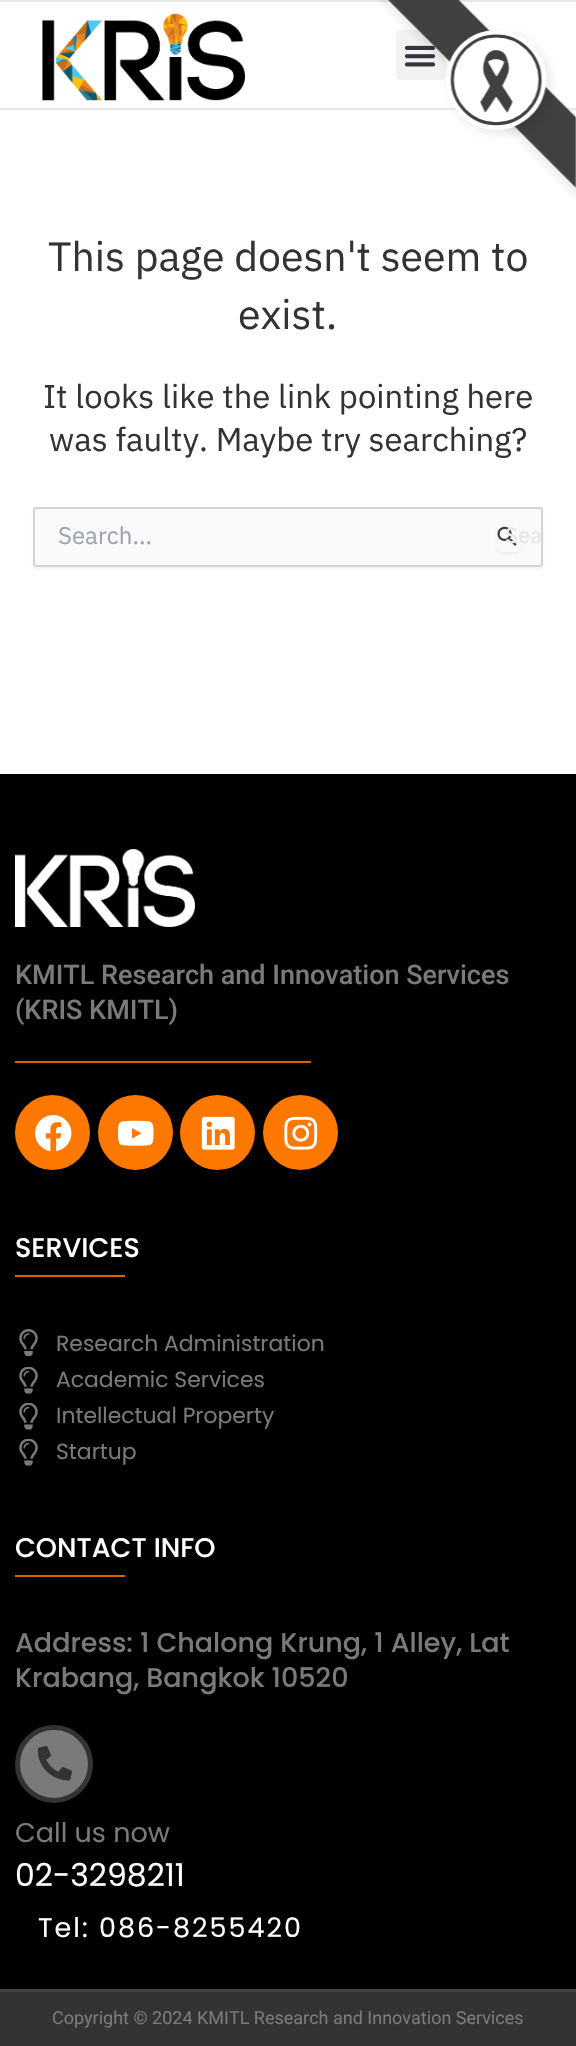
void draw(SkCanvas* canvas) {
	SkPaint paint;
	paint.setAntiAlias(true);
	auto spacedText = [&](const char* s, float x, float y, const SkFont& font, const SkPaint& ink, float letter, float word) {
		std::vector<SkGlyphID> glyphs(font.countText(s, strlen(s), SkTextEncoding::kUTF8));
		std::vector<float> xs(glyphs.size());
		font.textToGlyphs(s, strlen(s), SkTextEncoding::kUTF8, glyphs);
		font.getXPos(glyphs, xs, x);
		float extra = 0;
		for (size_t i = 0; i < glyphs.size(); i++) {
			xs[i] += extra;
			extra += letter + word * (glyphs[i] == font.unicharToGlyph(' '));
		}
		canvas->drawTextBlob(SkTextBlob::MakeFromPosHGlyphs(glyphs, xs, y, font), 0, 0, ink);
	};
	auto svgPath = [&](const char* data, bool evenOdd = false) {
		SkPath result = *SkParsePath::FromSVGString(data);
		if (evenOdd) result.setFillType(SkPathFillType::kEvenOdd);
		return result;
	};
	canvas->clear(0xffffffff);
	paint.setColor(0xffe7e7e7);
	canvas->drawRect(SkRect::MakeXYWH(0, 0, 576, 2), paint);
	canvas->drawRect(SkRect::MakeXYWH(0, 108, 576, 2), paint);
	paint.setColor(0xfff2f2f2);
	canvas->drawRoundRect(SkRect::MakeXYWH(396, 30, 50, 50), 5, 5, paint);
	canvas->drawImageRect(SkImages::DeferredFromEncodedData(SkData::MakeFromFileName("img3.png")), SkRect::MakeXYWH(404, 45, 32, 22), SkSamplingOptions());
	canvas->drawImageRect(SkImages::DeferredFromEncodedData(SkData::MakeFromFileName("img1.png")), SkRect::MakeXYWH(378, 0, 198, 197), SkSamplingOptions());
	canvas->drawImageRect(SkImages::DeferredFromEncodedData(SkData::MakeFromFileName("img2.png")), SkRect::MakeXYWH(42, 13, 204, 88), SkSamplingOptions());
	SkFont f1(fontMgr->matchFamilyStyle("IBM Plex Sans Thai", SkFontStyle::Normal()), 41);
	f1.setSubpixel(true);
	paint.setColor(0xff323334);
	canvas->drawString("This page doesn't seem to", 48, 271, f1, paint);
	canvas->drawString("exist.", 238, 329, f1, paint);
	SkFont f2(fontMgr->matchFamilyStyle("IBM Plex Sans Thai", SkFontStyle::Normal()), 32.8);
	f2.setSubpixel(true);
	canvas->drawString("It looks like the link pointing here", 43, 408, f2, paint);
	canvas->drawString("was faulty. Maybe try searching?", 49, 451, f2, paint);
	paint.setColor(0x0d000000);
	paint.setMaskFilter(SkMaskFilter::MakeBlur(kNormal_SkBlurStyle, 1.5));
	canvas->drawRoundRect(SkRect::MakeXYWH(33, 509, 510, 60), 3, 3, paint);
	paint.setMaskFilter(nullptr);
	paint.setColor(0xfffafafa);
	canvas->drawRoundRect(SkRect::MakeXYWH(34, 508, 508, 58), 2, 2, paint);
	paint.setStroke(true);
	paint.setStrokeWidth(2);
	paint.setColor(0xffd1d5db);
	canvas->drawRoundRect(SkRect::MakeXYWH(34, 508, 508, 58), 2, 2, paint);
	SkFont f3(fontMgr->matchFamilyStyle("IBM Plex Sans Thai", SkFontStyle::Normal()), 24);
	f3.setSubpixel(true);
	paint.setStroke(false);
	paint.setColor(0xff9ca3af);
	canvas->drawString("Search...", 58, 544, f3, paint);
	canvas->save();
	canvas->clipPath(svgPath("M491 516H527V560H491ZM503 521H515C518.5 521 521 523.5 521 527V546C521 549.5 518.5 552 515 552H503C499.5 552 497 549.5 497 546V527C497 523.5 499.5 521 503 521Z", true), true);
	paint.setColor(0x0d000000);
	paint.setMaskFilter(SkMaskFilter::MakeBlur(kNormal_SkBlurStyle, 1.5));
	canvas->drawRoundRect(SkRect::MakeXYWH(497, 522, 24, 32), 6, 6, paint);
	paint.setMaskFilter(nullptr);
	canvas->restore();
	canvas->drawImageRect(SkImages::DeferredFromEncodedData(SkData::MakeFromFileName("img4.png")), SkRect::MakeXYWH(497, 526, 20, 20), SkSamplingOptions());
	SkFont f4(fontMgr->matchFamilyStyle("IBM Plex Sans Thai", SkFontStyle(500, SkFontStyle::kNormal_Width, SkFontStyle::kUpright_Slant)), 21.9);
	f4.setSubpixel(true);
	paint.setColor(0xffe8e8e8);
	canvas->drawString("Sea", 505, 543, f4, paint);
	paint.setColor(0xff000000);
	canvas->drawRect(SkRect::MakeXYWH(0, 774, 576, 1215), paint);
	canvas->drawImageRect(SkImages::DeferredFromEncodedData(SkData::MakeFromFileName("img5.png")), SkRect::MakeXYWH(15, 849, 180, 78), SkSamplingOptions());
	SkFont f5(fontMgr->matchFamilyStyle("Roboto", SkFontStyle(500, SkFontStyle::kNormal_Width, SkFontStyle::kUpright_Slant)), 27);
	f5.setSubpixel(true);
	paint.setColor(0xff7a7a7a);
	canvas->drawString("KMITL Research and Innovation Services", 15, 984, f5, paint);
	canvas->drawString("(KRIS KMITL)", 15, 1019, f5, paint);
	paint.setColor(0xffd56500);
	canvas->drawRect(SkRect::MakeXYWH(15, 1061, 296, 2), paint);
	paint.setColor(0xfffd7800);
	canvas->drawCircle(52.5, 1132.5, 37.5, paint);
	canvas->drawImageRect(SkImages::DeferredFromEncodedData(SkData::MakeFromFileName("img6.png")), SkRect::MakeXYWH(35, 1115, 37, 37), SkSamplingOptions());
	canvas->drawCircle(135.5, 1132.5, 37.5, paint);
	canvas->drawImageRect(SkImages::DeferredFromEncodedData(SkData::MakeFromFileName("img7.png")), SkRect::MakeXYWH(118, 1120, 36, 26), SkSamplingOptions());
	canvas->drawCircle(217.5, 1132.5, 37.5, paint);
	canvas->drawImageRect(SkImages::DeferredFromEncodedData(SkData::MakeFromFileName("img8.png")), SkRect::MakeXYWH(201, 1116, 34, 34), SkSamplingOptions());
	canvas->drawCircle(300.5, 1132.5, 37.5, paint);
	canvas->drawImageRect(SkImages::DeferredFromEncodedData(SkData::MakeFromFileName("img9.png")), SkRect::MakeXYWH(284, 1116, 34, 34), SkSamplingOptions());
	SkFont f6(fontMgr->matchFamilyStyle("Poppins", SkFontStyle(500, SkFontStyle::kNormal_Width, SkFontStyle::kUpright_Slant)), 27);
	f6.setSubpixel(true);
	paint.setColor(0xffffffff);
	canvas->drawString("SERVICES", 15, 1257, f6, paint);
	paint.setColor(0xffd56500);
	canvas->drawRect(SkRect::MakeXYWH(15, 1275, 110, 2), paint);
	canvas->drawImageRect(SkImages::DeferredFromEncodedData(SkData::MakeFromFileName("img10.png")), SkRect::MakeXYWH(19, 1329, 19, 27), SkSamplingOptions());
	SkFont f7(fontMgr->matchFamilyStyle("Poppins", SkFontStyle::Normal()), 21.9);
	f7.setSubpixel(true);
	paint.setColor(0xff7a7a7a);
	canvas->drawString("Research Administration", 56, 1351, f7, paint);
	canvas->drawImageRect(SkImages::DeferredFromEncodedData(SkData::MakeFromFileName("img11.png")), SkRect::MakeXYWH(19, 1367, 19, 27), SkSamplingOptions());
	canvas->drawString("Academic Services", 56, 1387, f7, paint);
	canvas->drawImageRect(SkImages::DeferredFromEncodedData(SkData::MakeFromFileName("img11.png")), SkRect::MakeXYWH(19, 1403, 19, 27), SkSamplingOptions());
	canvas->drawString("Intellectual Property", 56, 1423, f7, paint);
	canvas->drawImageRect(SkImages::DeferredFromEncodedData(SkData::MakeFromFileName("img11.png")), SkRect::MakeXYWH(19, 1439, 19, 27), SkSamplingOptions());
	canvas->drawString("Startup", 56, 1459, f7, paint);
	paint.setColor(0xffffffff);
	canvas->drawString("CONTACT INFO", 15, 1557, f6, paint);
	paint.setColor(0xffd56500);
	canvas->drawRect(SkRect::MakeXYWH(15, 1575, 110, 2), paint);
	paint.setColor(0xff7a7a7a);
	canvas->drawString("Address: 1 Chalong Krung, 1 Alley, Lat", 15, 1652, f6, paint);
	canvas->drawString("Krabang, Bangkok 10520", 15, 1687, f6, paint);
	canvas->drawCircle(54, 1764, 36.5, paint);
	paint.setStroke(true);
	paint.setStrokeWidth(5);
	paint.setColor(0xff323334);
	canvas->drawCircle(54, 1764, 36.5, paint);
	canvas->drawImageRect(SkImages::DeferredFromEncodedData(SkData::MakeFromFileName("img12.png")), SkRect::MakeXYWH(38, 1746, 34, 35), SkSamplingOptions());
	SkFont f8(fontMgr->matchFamilyStyle("Poppins", SkFontStyle::Normal()), 27);
	f8.setSubpixel(true);
	paint.setStroke(false);
	paint.setColor(0xff7a7a7a);
	canvas->drawString("Call us now", 15, 1842, f8, paint);
	SkFont f9(fontMgr->matchFamilyStyle("Poppins", SkFontStyle::Normal()), 31.5);
	f9.setSubpixel(true);
	paint.setColor(0xffffffff);
	canvas->drawString("02-3298211", 15, 1886, f9, paint);
	spacedText("Tel: 086-8255420", 38, 1937, f8, paint, 2, 0);
	paint.setColor(0xff323334);
	canvas->drawRect(SkRect::MakeXYWH(0, 1992, 576, 54), paint);
	paint.setColor(0xff424242);
	canvas->drawRect(SkRect::MakeXYWH(0, 1989, 576, 3), paint);
	SkFont f10(fontMgr->matchFamilyStyle("Roboto", SkFontStyle::Normal()), 18);
	f10.setSubpixel(true);
	paint.setColor(0xff7a7a7a);
	canvas->drawString("Copyright © 2024 KMITL Research and Innovation Services", 52, 2024, f10, paint);
}
